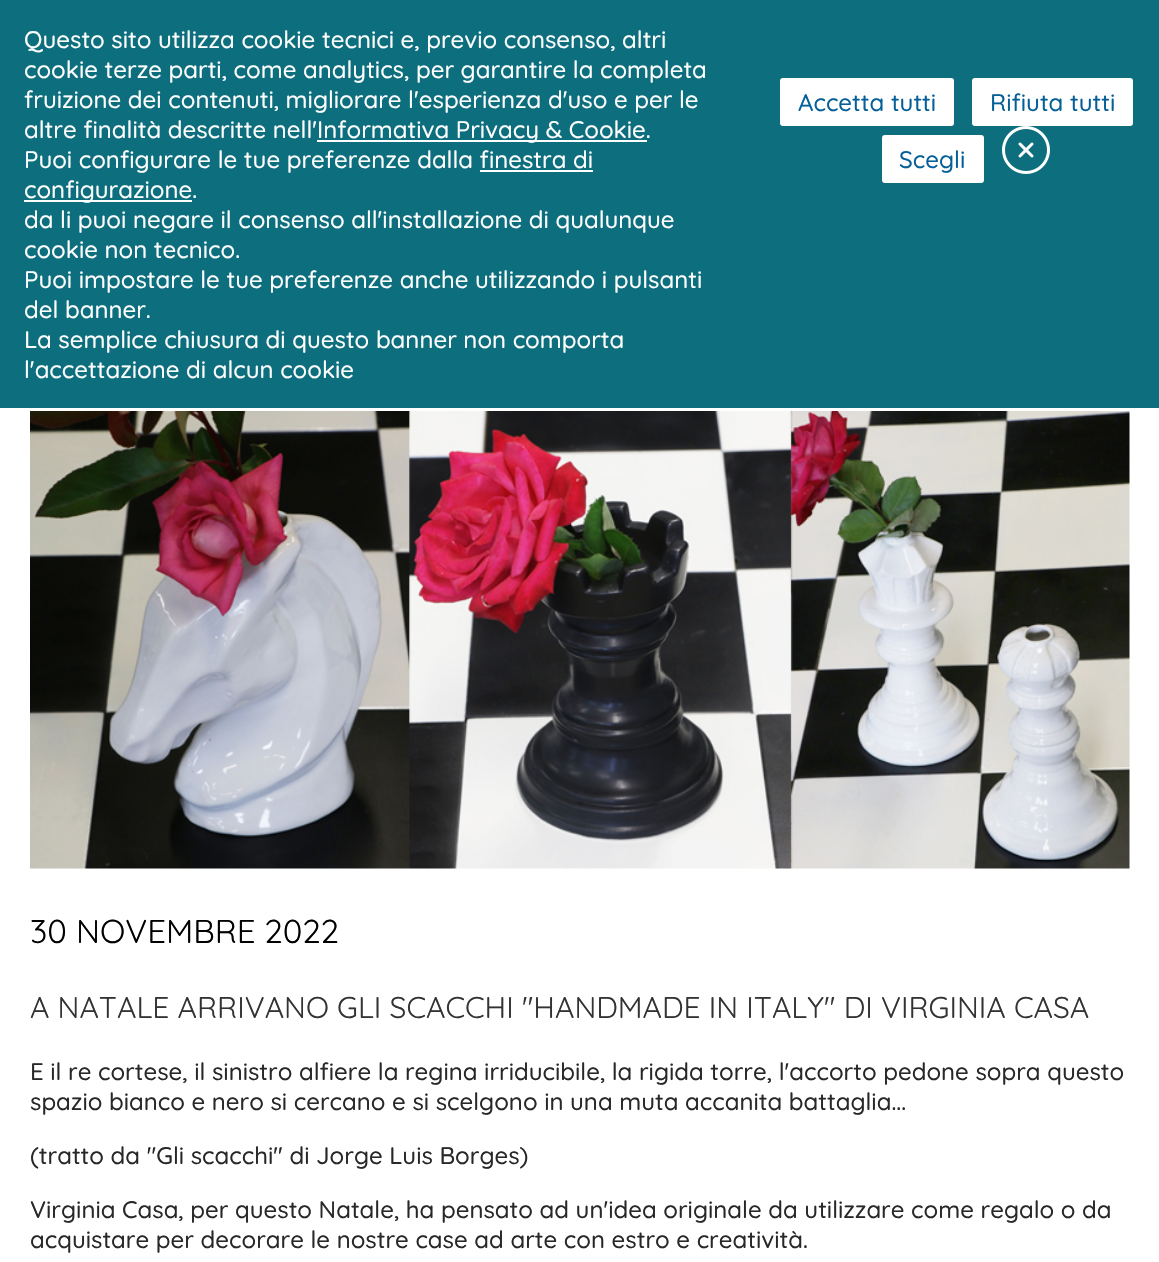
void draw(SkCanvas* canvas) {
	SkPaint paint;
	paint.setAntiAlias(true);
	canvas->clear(0xffffffff);
	paint.setColor(0xff0d6e7e);
	canvas->drawRect(SkRect::MakeXYWH(0, 0, 1159, 408), paint);
	SkFont f1(fontMgr->matchFamilyStyle("Quicksand", SkFontStyle(500, SkFontStyle::kNormal_Width, SkFontStyle::kUpright_Slant)), 24);
	f1.setSubpixel(true);
	paint.setColor(0xffffffff);
	canvas->drawString("Questo sito utilizza cookie tecnici e, previo consenso, altri", 24, 48, f1, paint);
	canvas->drawString("cookie terze parti, come analytics, per garantire la completa", 24, 78, f1, paint);
	canvas->drawString("fruizione dei contenuti, migliorare l'esperienza d'uso e per le", 24, 108, f1, paint);
	canvas->drawString("altre finalità descritte nell'", 24, 138, f1, paint);
	canvas->drawRect(SkRect::MakeXYWH(317, 140, 330, 2), paint);
	canvas->drawString("Informativa Privacy & Cookie.", 317, 138, f1, paint);
	canvas->drawString("Puoi configurare le tue preferenze dalla finestra di", 24, 168, f1, paint);
	canvas->drawRect(SkRect::MakeXYWH(24, 200, 168, 2), paint);
	canvas->drawString("configurazione.", 24, 198, f1, paint);
	canvas->drawRect(SkRect::MakeXYWH(480, 170, 113, 2), paint);
	canvas->drawString("da li puoi negare il consenso all'installazione di qualunque", 24, 228, f1, paint);
	canvas->drawString("cookie non tecnico.", 24, 258, f1, paint);
	canvas->drawString("Puoi impostare le tue preferenze anche utilizzando i pulsanti", 24, 288, f1, paint);
	canvas->drawString("del banner.", 24, 318, f1, paint);
	canvas->drawString("La semplice chiusura di questo banner non comporta", 24, 348, f1, paint);
	canvas->drawString("l'accettazione di alcun cookie", 24, 378, f1, paint);
	canvas->drawRoundRect(SkRect::MakeXYWH(780, 78, 174, 48), 3, 3, paint);
	paint.setColor(0xff055f98);
	canvas->drawString("Accetta tutti", 798, 111, f1, paint);
	paint.setColor(0xffffffff);
	canvas->drawRoundRect(SkRect::MakeXYWH(972, 78, 161, 48), 3, 3, paint);
	paint.setColor(0xff055f98);
	canvas->drawString("Rifiuta tutti", 990, 111, f1, paint);
	paint.setColor(0xffffffff);
	canvas->drawRoundRect(SkRect::MakeXYWH(882, 135, 102, 48), 3, 3, paint);
	paint.setColor(0xff055f98);
	canvas->drawString("Scegli", 899, 168, f1, paint);
	canvas->drawImageRect(SkImages::DeferredFromEncodedData(SkData::MakeFromFileName("img1.png")), SkRect::MakeXYWH(1002, 126, 48, 48), SkSamplingOptions());
	canvas->drawImageRect(SkImages::DeferredFromEncodedData(SkData::MakeFromFileName("img2.png")), SkRect::MakeXYWH(30, 411, 1100, 458), SkSamplingOptions());
	SkFont f2(fontMgr->matchFamilyStyle("Quicksand", SkFontStyle::Normal()), 33);
	f2.setSubpixel(true);
	paint.setColor(0xff000000);
	canvas->drawString("30 NOVEMBRE 2022", 30, 943, f2, paint);
	SkFont f3(fontMgr->matchFamilyStyle("Quicksand", SkFontStyle::Normal()), 30);
	f3.setSubpixel(true);
	paint.setColor(0xff333333);
	canvas->drawString("A NATALE ARRIVANO GLI SCACCHI \"HANDMADE IN ITALY\" DI VIRGINIA CASA", 30, 1018, f3, paint);
	paint.setColor(0xff282828);
	canvas->drawString("E il re cortese, il sinistro alfiere la regina irriducibile, la rigida torre, l'accorto pedone sopra questo", 30, 1080, f1, paint);
	canvas->drawString("spazio bianco e nero si cercano e si scelgono in una muta accanita battaglia...", 30, 1110, f1, paint);
	canvas->drawString("(tratto da \"Gli scacchi\" di Jorge Luis Borges)", 30, 1164, f1, paint);
	canvas->drawString("Virginia Casa, per questo Natale, ha pensato ad un'idea originale da utilizzare come regalo o da", 30, 1218, f1, paint);
	canvas->drawString("acquistare per decorare le nostre case ad arte con estro e creatività.", 30, 1248, f1, paint);
}
